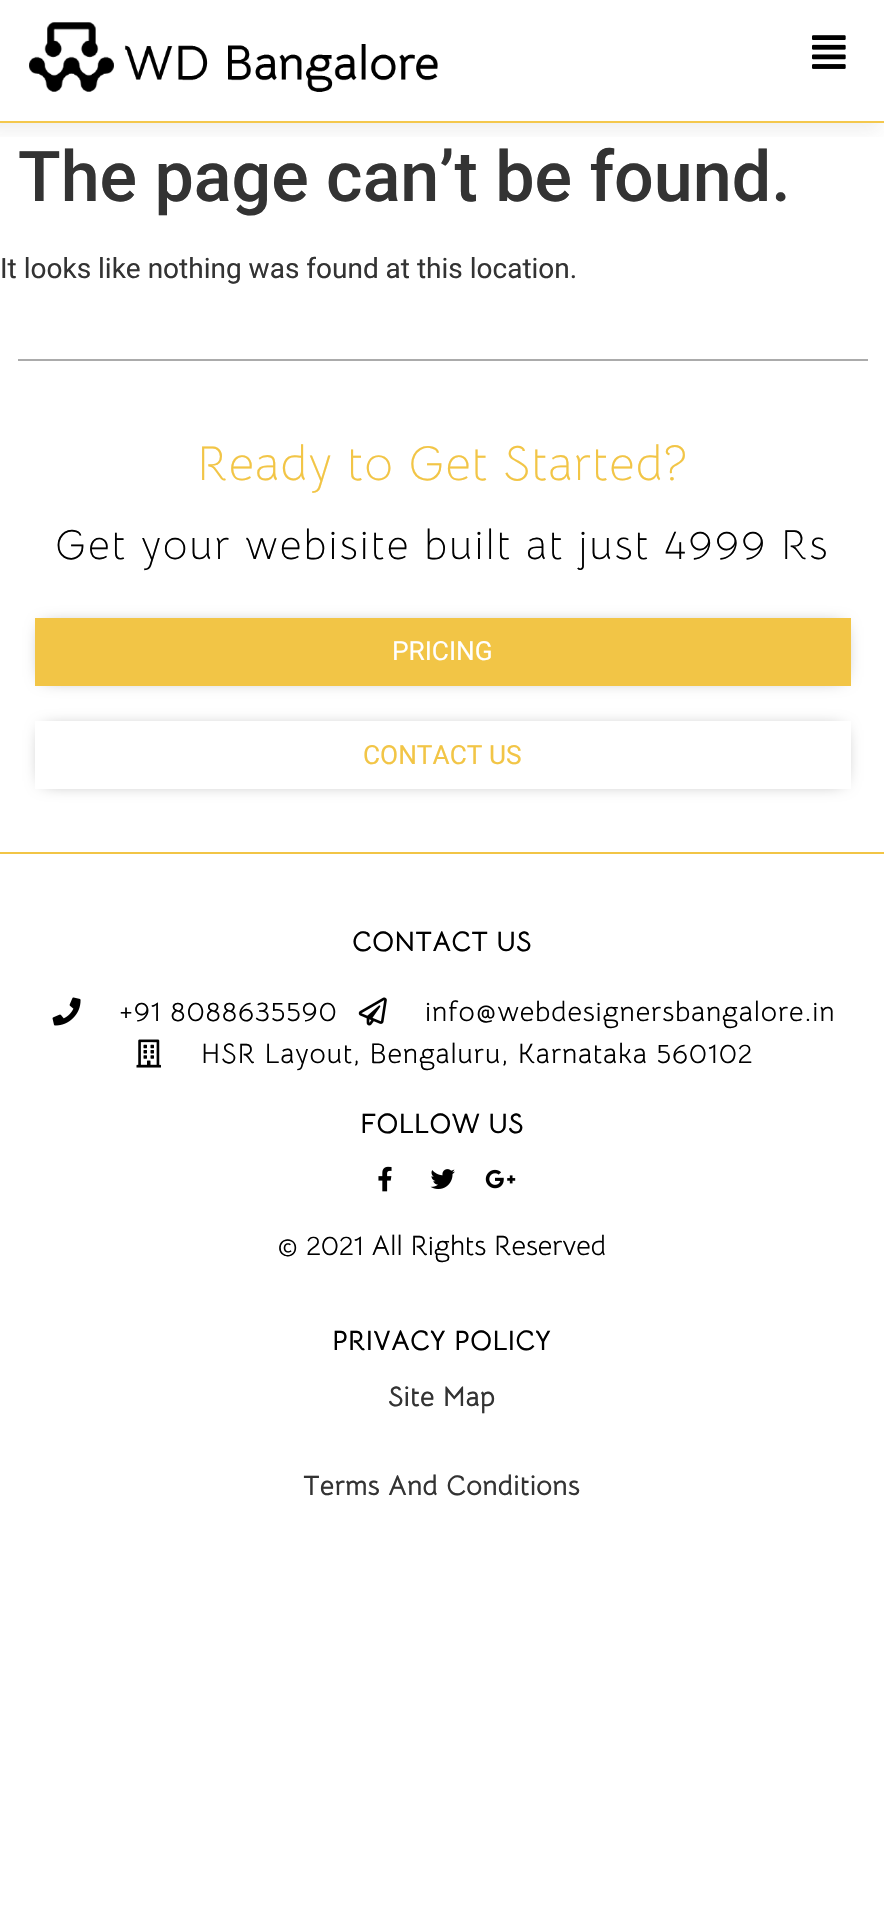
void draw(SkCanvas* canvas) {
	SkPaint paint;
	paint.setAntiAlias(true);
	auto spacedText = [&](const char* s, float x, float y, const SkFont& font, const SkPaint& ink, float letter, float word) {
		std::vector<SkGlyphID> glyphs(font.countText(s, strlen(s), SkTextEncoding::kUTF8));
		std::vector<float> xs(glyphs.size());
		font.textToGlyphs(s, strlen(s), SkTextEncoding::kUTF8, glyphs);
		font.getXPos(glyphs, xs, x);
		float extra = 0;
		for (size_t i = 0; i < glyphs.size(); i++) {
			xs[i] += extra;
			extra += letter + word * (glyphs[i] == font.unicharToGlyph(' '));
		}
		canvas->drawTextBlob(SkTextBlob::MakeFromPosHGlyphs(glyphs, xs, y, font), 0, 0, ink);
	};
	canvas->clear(0xffffffff);
	canvas->save();
	canvas->clipRect(SkRect::MakeXYWH(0, 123, 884, 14));
	paint.setColor(0x17414141);
	paint.setMaskFilter(SkMaskFilter::MakeBlur(kNormal_SkBlurStyle, 9));
	canvas->drawRect(SkRect::MakeXYWH(-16, -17, 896, 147), paint);
	paint.setMaskFilter(nullptr);
	canvas->restore();
	paint.setColor(0xfff4c84e);
	canvas->drawRect(SkRect::MakeXYWH(0, 121, 884, 2), paint);
	canvas->drawImageRect(SkImages::DeferredFromEncodedData(SkData::MakeFromFileName("img1.png")), SkRect::MakeXYWH(29, 22, 409, 70), SkSamplingOptions());
	canvas->drawImageRect(SkImages::DeferredFromEncodedData(SkData::MakeFromFileName("img2.png")), SkRect::MakeXYWH(812, 35, 34, 34), SkSamplingOptions());
	SkFont f1(fontMgr->matchFamilyStyle("Roboto", SkFontStyle(500, SkFontStyle::kNormal_Width, SkFontStyle::kUpright_Slant)), 70);
	f1.setSubpixel(true);
	paint.setColor(0xff333333);
	canvas->drawString("The page can’t be found.", 18, 201, f1, paint);
	SkFont f2(fontMgr->matchFamilyStyle("Roboto", SkFontStyle::Normal()), 28);
	f2.setSubpixel(true);
	canvas->drawString("It looks like nothing was found at this location.", 0, 278, f2, paint);
	paint.setColor(0xffababab);
	canvas->drawRect(SkRect::MakeXYWH(18, 359, 850, 2), paint);
	SkFont f3(fontMgr->matchFamilyStyle("Bellota Text", SkFontStyle(300, SkFontStyle::kNormal_Width, SkFontStyle::kUpright_Slant)), 49);
	f3.setSubpixel(true);
	paint.setColor(0xfff2c546);
	spacedText("Ready to Get Started?", 197, 480, f3, paint, 1.25, 0);
	SkFont f4(fontMgr->matchFamilyStyle("Bellota Text", SkFontStyle(300, SkFontStyle::kNormal_Width, SkFontStyle::kUpright_Slant)), 42);
	f4.setSubpixel(true);
	paint.setColor(0xff000000);
	spacedText("Get your webisite built at just 4999 Rs", 55, 559, f4, paint, 2.25, 0);
	paint.setColor(0x80000000);
	paint.setMaskFilter(SkMaskFilter::MakeBlur(kNormal_SkBlurStyle, 9));
	canvas->drawRect(SkRect::MakeXYWH(44, 627, 798, 50), paint);
	paint.setMaskFilter(nullptr);
	paint.setColor(0xfff2c546);
	canvas->drawRect(SkRect::MakeXYWH(35, 618, 816, 68), paint);
	SkFont f5(fontMgr->matchFamilyStyle("Roboto", SkFontStyle::Normal()), 26.25);
	f5.setSubpixel(true);
	paint.setColor(0xffffffff);
	canvas->drawString("PRICING", 392, 660, f5, paint);
	paint.setColor(0x80000000);
	paint.setMaskFilter(SkMaskFilter::MakeBlur(kNormal_SkBlurStyle, 9));
	canvas->drawRect(SkRect::MakeXYWH(44, 730, 798, 51), paint);
	paint.setMaskFilter(nullptr);
	paint.setColor(0xffffffff);
	canvas->drawRect(SkRect::MakeXYWH(35, 721, 816, 68), paint);
	paint.setColor(0xfff2c546);
	canvas->drawString("CONTACT US", 363, 764, f5, paint);
	canvas->drawRect(SkRect::MakeXYWH(0, 852, 884, 2), paint);
	SkFont f6(fontMgr->matchFamilyStyle("Bellota Text", SkFontStyle::Bold()), 28);
	f6.setSubpixel(true);
	paint.setColor(0xff000000);
	canvas->drawString("CONTACT US", 352, 951, f6, paint);
	canvas->drawImageRect(SkImages::DeferredFromEncodedData(SkData::MakeFromFileName("img3.png")), SkRect::MakeXYWH(52, 997, 29, 29), SkSamplingOptions());
	SkFont f7(fontMgr->matchFamilyStyle("Bellota Text", SkFontStyle::Normal()), 28);
	f7.setSubpixel(true);
	spacedText("+91 8088635590", 119, 1021, f7, paint, 0.9, 0);
	canvas->drawImageRect(SkImages::DeferredFromEncodedData(SkData::MakeFromFileName("img4.png")), SkRect::MakeXYWH(358, 997, 29, 29), SkSamplingOptions());
	spacedText("info@webdesignersbangalore.in", 425, 1021, f7, paint, 0.9, 0);
	canvas->drawImageRect(SkImages::DeferredFromEncodedData(SkData::MakeFromFileName("img5.png")), SkRect::MakeXYWH(136, 1039, 25, 29), SkSamplingOptions());
	spacedText("HSR Layout, Bengaluru, Karnataka 560102", 201, 1063, f7, paint, 0.9, 0);
	canvas->drawString("FOLLOW US", 360, 1133, f6, paint);
	canvas->drawImageRect(SkImages::DeferredFromEncodedData(SkData::MakeFromFileName("img6.png")), SkRect::MakeXYWH(378, 1166, 14, 26), SkSamplingOptions());
	canvas->drawImageRect(SkImages::DeferredFromEncodedData(SkData::MakeFromFileName("img7.png")), SkRect::MakeXYWH(430, 1169, 25, 20), SkSamplingOptions());
	canvas->drawImageRect(SkImages::DeferredFromEncodedData(SkData::MakeFromFileName("img8.png")), SkRect::MakeXYWH(485, 1169, 31, 20), SkSamplingOptions());
	canvas->drawString("© 2021 All Rights Reserved", 277, 1255, f7, paint);
	canvas->drawString("PRIVACY POLICY", 332, 1350, f6, paint);
	paint.setColor(0xff333333);
	canvas->drawString("Site Map", 388, 1406, f6, paint);
	canvas->drawString("Terms And Conditions", 303, 1495, f6, paint);
}
